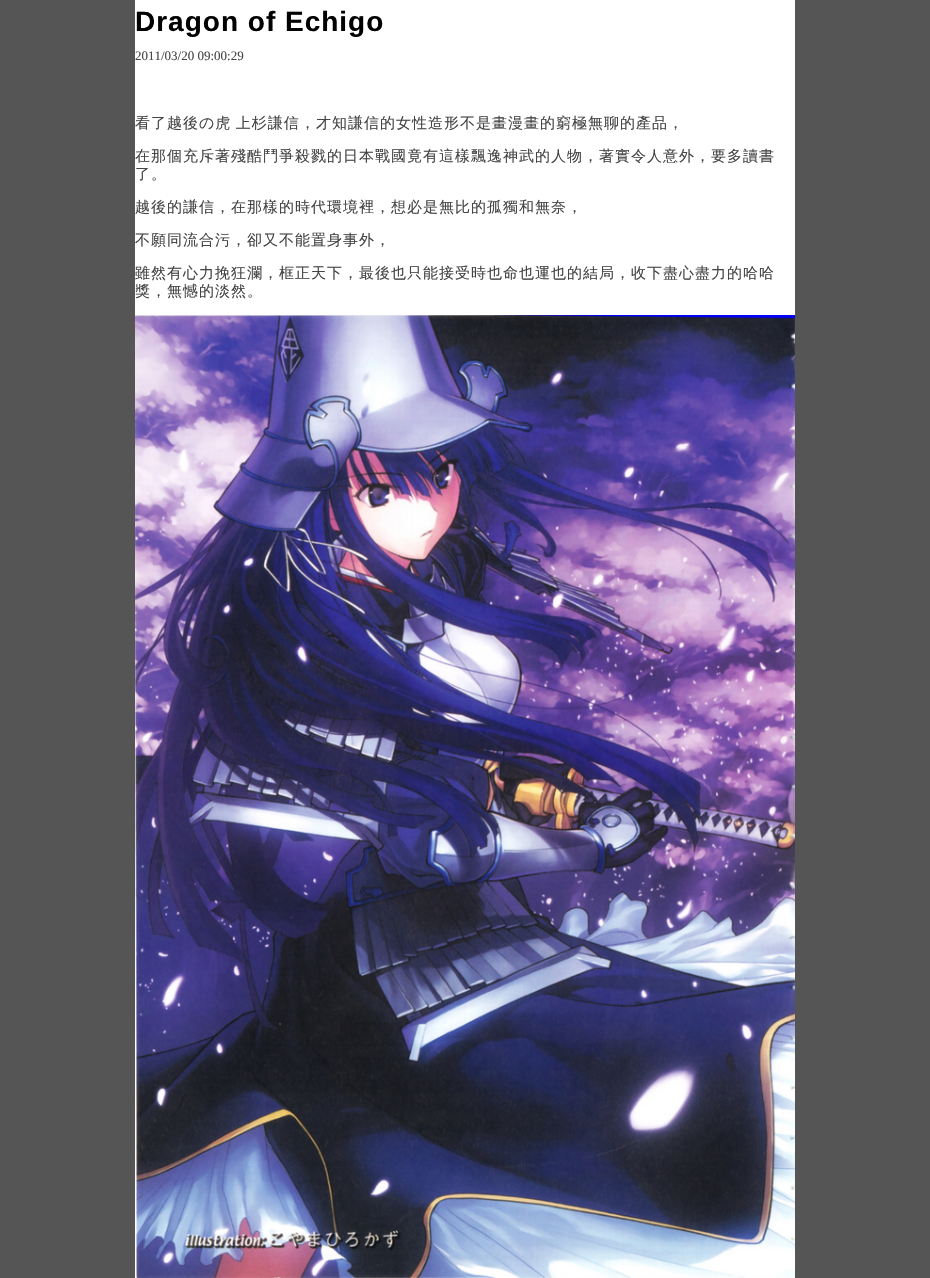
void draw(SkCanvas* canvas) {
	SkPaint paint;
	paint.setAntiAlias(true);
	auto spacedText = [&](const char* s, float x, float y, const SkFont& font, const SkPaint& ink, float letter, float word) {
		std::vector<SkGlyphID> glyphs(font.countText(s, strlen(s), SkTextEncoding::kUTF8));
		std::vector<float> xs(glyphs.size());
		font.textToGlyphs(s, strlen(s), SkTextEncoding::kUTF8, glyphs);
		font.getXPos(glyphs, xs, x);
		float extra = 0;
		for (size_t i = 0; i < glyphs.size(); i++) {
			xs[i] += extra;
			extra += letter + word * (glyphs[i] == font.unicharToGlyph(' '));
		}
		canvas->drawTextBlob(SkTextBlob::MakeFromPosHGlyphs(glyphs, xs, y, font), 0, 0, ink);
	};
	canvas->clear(0xff555555);
	paint.setColor(0xffffffff);
	canvas->drawRect(SkRect::MakeXYWH(135, 0, 660, 315), paint);
	SkFont f1(fontMgr->matchFamilyStyle("Liberation Sans", SkFontStyle::Bold()), 28);
	f1.setSubpixel(true);
	paint.setColor(0xff000000);
	spacedText("Dragon of Echigo", 135, 31, f1, paint, 1, 0);
	SkFont f2(fontMgr->matchFamilyStyle("Liberation Serif", SkFontStyle::Normal()), 13);
	f2.setSubpixel(true);
	paint.setColor(0xff444444);
	canvas->drawString("2011/03/20 09:00:29", 135, 60, f2, paint);
	SkFont f3(fontMgr->matchFamilyStyle("WenQuanYi Zen Hei", SkFontStyle(500, SkFontStyle::kNormal_Width, SkFontStyle::kUpright_Slant)), 15);
	f3.setSubpixel(true);
	spacedText("看了", 135, 128, f3, paint, 1, 0);
	spacedText("越後の虎 上杉謙信", 167, 128, f3, paint, 1, -1);
	spacedText("，才知謙信的女性造形不是畫漫畫的窮極無聊的產品，", 300, 128, f3, paint, 1, 0);
	spacedText("在那個充斥著殘酷鬥爭殺戮的日本戰國竟有這樣飄逸神武的人物，著實令人意外，要多讀書", 135, 161, f3, paint, 1, 0);
	spacedText("了。", 135, 179, f3, paint, 1, 0);
	spacedText("越後的謙信，在那樣的時代環境裡，想必是無比的孤獨和無奈，", 135, 212, f3, paint, 1, 0);
	spacedText("不願同流合污，卻又不能置身事外，", 135, 245, f3, paint, 1, 0);
	spacedText("雖然有心力挽狂瀾，框正天下，最後也只能接受時也命也運也的結局，收下盡心盡力的哈哈", 135, 278, f3, paint, 1, 0);
	spacedText("獎，無憾的淡然。", 135, 296, f3, paint, 1, 0);
	canvas->drawImageRect(SkImages::DeferredFromEncodedData(SkData::MakeFromFileName("img1.png")), SkRect::MakeXYWH(135, 315, 660, 963), SkSamplingOptions());
}
